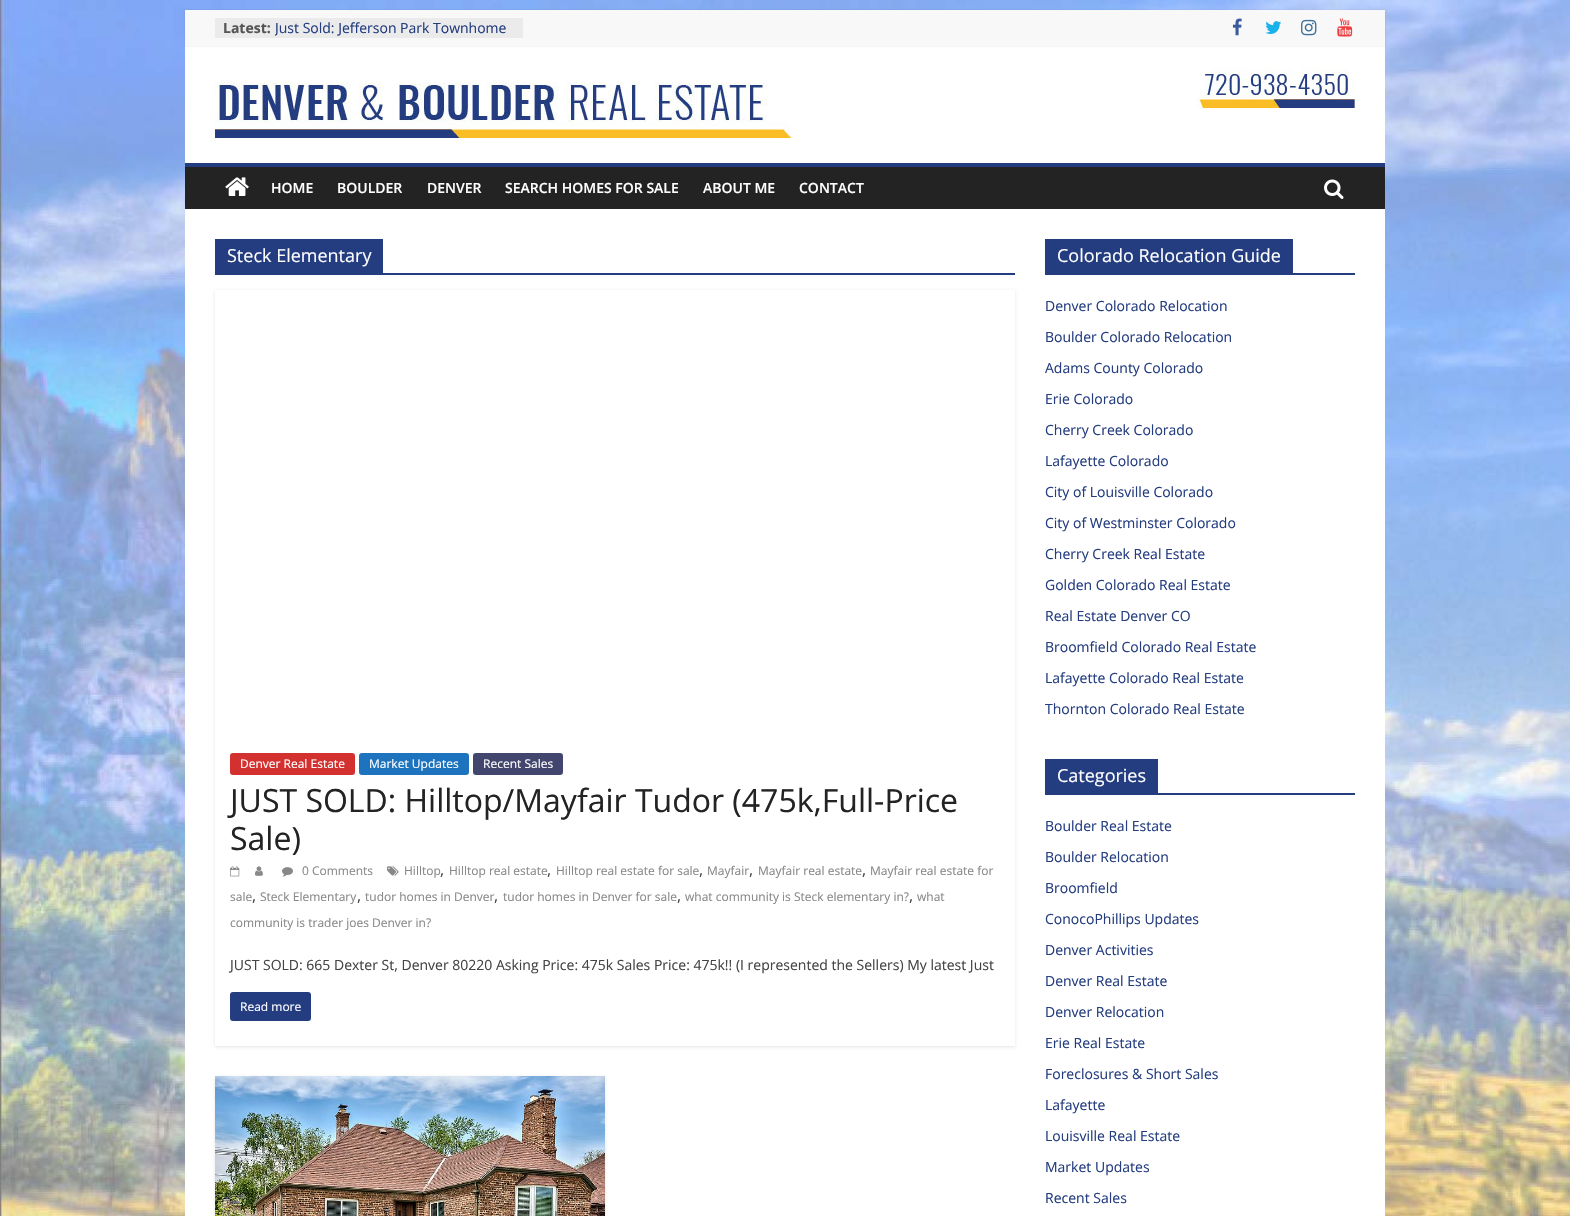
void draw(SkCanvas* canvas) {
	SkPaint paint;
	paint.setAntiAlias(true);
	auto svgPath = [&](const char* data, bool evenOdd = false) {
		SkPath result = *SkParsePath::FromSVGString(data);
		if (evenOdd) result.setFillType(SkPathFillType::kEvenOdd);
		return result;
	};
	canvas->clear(0xffffffff);
	canvas->drawImageRect(SkImages::DeferredFromEncodedData(SkData::MakeFromFileName("img1.png")), SkRect::MakeXYWH(0, 0, 1570, 1216), SkSamplingOptions());
	paint.setColor(0xffffffff);
	canvas->drawRect(SkRect::MakeXYWH(185, 46, 1200, 117), paint);
	paint.setColor(0x1a000000);
	paint.setMaskFilter(SkMaskFilter::MakeBlur(kNormal_SkBlurStyle, 1));
	canvas->drawRect(SkRect::MakeXYWH(185, 10, 1200, 36), paint);
	paint.setMaskFilter(nullptr);
	paint.setColor(0xfff8f8f8);
	canvas->drawRect(SkRect::MakeXYWH(185, 10, 1200, 36), paint);
	paint.setColor(0xffebebec);
	canvas->drawRect(SkRect::MakeXYWH(215, 18, 308, 20), paint);
	SkFont f1(fontMgr->matchFamilyStyle("Open Sans", SkFontStyle::Bold()), 14);
	f1.setSubpixel(true);
	paint.setColor(0xff555555);
	canvas->drawString("Latest:", 223, 33, f1, paint);
	canvas->save();
	canvas->clipRect(SkRect::MakeXYWH(275, 18, 240, 20));
	SkFont f2(fontMgr->matchFamilyStyle("Open Sans", SkFontStyle::Normal()), 14);
	f2.setSubpixel(true);
	paint.setColor(0xff243d80);
	canvas->drawString("Just Sold: Jefferson Park Townhome", 275, 33, f2, paint);
	canvas->restore();
	canvas->drawImageRect(SkImages::DeferredFromEncodedData(SkData::MakeFromFileName("img2.png")), SkRect::MakeXYWH(1232, 18, 10, 18), SkSamplingOptions());
	canvas->drawImageRect(SkImages::DeferredFromEncodedData(SkData::MakeFromFileName("img3.png")), SkRect::MakeXYWH(1265, 21, 17, 13), SkSamplingOptions());
	canvas->drawImageRect(SkImages::DeferredFromEncodedData(SkData::MakeFromFileName("img4.png")), SkRect::MakeXYWH(1301, 19, 16, 17), SkSamplingOptions());
	canvas->drawImageRect(SkImages::DeferredFromEncodedData(SkData::MakeFromFileName("img5.png")), SkRect::MakeXYWH(1337, 18, 16, 19), SkSamplingOptions());
	canvas->drawImageRect(SkImages::DeferredFromEncodedData(SkData::MakeFromFileName("img6.png")), SkRect::MakeXYWH(215, 82, 576, 56), SkSamplingOptions());
	canvas->drawImageRect(SkImages::DeferredFromEncodedData(SkData::MakeFromFileName("img7.png")), SkRect::MakeXYWH(1197, 66, 158, 42), SkSamplingOptions());
	paint.setColor(0xff232323);
	canvas->drawRect(SkRect::MakeXYWH(185, 167, 1200, 42), paint);
	paint.setColor(0xff243d80);
	canvas->drawRect(SkRect::MakeXYWH(185, 163, 1200, 4), paint);
	canvas->drawImageRect(SkImages::DeferredFromEncodedData(SkData::MakeFromFileName("img8.png")), SkRect::MakeXYWH(225, 177, 24, 19), SkSamplingOptions());
	SkFont f3(fontMgr->matchFamilyStyle("Open Sans", SkFontStyle(600, SkFontStyle::kNormal_Width, SkFontStyle::kUpright_Slant)), 14);
	f3.setSubpixel(true);
	paint.setColor(0xffffffff);
	canvas->drawString("HOME", 271, 193, f3, paint);
	canvas->drawString("BOULDER", 337, 193, f3, paint);
	canvas->drawString("DENVER", 427, 193, f3, paint);
	canvas->drawString("SEARCH HOMES FOR SALE", 505, 193, f3, paint);
	canvas->drawString("ABOUT ME", 703, 193, f3, paint);
	canvas->drawString("CONTACT", 799, 193, f3, paint);
	canvas->drawImageRect(SkImages::DeferredFromEncodedData(SkData::MakeFromFileName("img9.png")), SkRect::MakeXYWH(1324, 179, 20, 20), SkSamplingOptions());
	canvas->drawRect(SkRect::MakeXYWH(185, 209, 1200, 1007), paint);
	paint.setColor(0xff243d80);
	canvas->drawRect(SkRect::MakeXYWH(215, 273, 800, 2), paint);
	canvas->drawRect(SkRect::MakeXYWH(215, 239, 168, 34), paint);
	SkFont f4(fontMgr->matchFamilyStyle("Open Sans", SkFontStyle::Normal()), 18);
	f4.setSubpixel(true);
	paint.setColor(0xffffffff);
	canvas->drawString("Steck Elementary", 227, 262, f4, paint);
	canvas->save();
	canvas->clipPath(svgPath("M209 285H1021V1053H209ZM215 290H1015V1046H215Z", true), true);
	paint.setColor(0x1a000000);
	paint.setMaskFilter(SkMaskFilter::MakeBlur(kNormal_SkBlurStyle, 1.5));
	canvas->drawRect(SkRect::MakeXYWH(215, 291, 800, 756), paint);
	paint.setMaskFilter(nullptr);
	canvas->restore();
	paint.setColor(0xffd33030);
	canvas->drawRoundRect(SkRect::MakeXYWH(230, 753, 125, 22), 3, 3, paint);
	SkFont f5(fontMgr->matchFamilyStyle("Open Sans", SkFontStyle::Normal()), 12);
	f5.setSubpixel(true);
	paint.setColor(0xffffffff);
	canvas->drawString("Denver Real Estate", 240, 768, f5, paint);
	paint.setColor(0xff1e73be);
	canvas->drawRoundRect(SkRect::MakeXYWH(359, 753, 110, 22), 3, 3, paint);
	paint.setColor(0xffffffff);
	canvas->drawString("Market Updates", 369, 768, f5, paint);
	paint.setColor(0xff42456d);
	canvas->drawRoundRect(SkRect::MakeXYWH(473, 753, 90, 22), 3, 3, paint);
	paint.setColor(0xffffffff);
	canvas->drawString("Recent Sales", 483, 768, f5, paint);
	SkFont f6(fontMgr->matchFamilyStyle("Open Sans", SkFontStyle::Normal()), 32);
	f6.setSubpixel(true);
	paint.setColor(0xff232323);
	canvas->drawString("JUST SOLD: Hilltop/Mayfair Tudor (475k,Full-Price", 230, 812, f6, paint);
	canvas->drawString("Sale)", 230, 850, f6, paint);
	canvas->drawImageRect(SkImages::DeferredFromEncodedData(SkData::MakeFromFileName("img10.png")), SkRect::MakeXYWH(387, 866, 12, 10), SkSamplingOptions());
	paint.setColor(0xff888888);
	canvas->drawString("Hilltop", 404, 875, f5, paint);
	SkFont f7(fontMgr->matchFamilyStyle("Open Sans", SkFontStyle::Normal()), 16);
	f7.setSubpixel(true);
	paint.setColor(0xff444444);
	canvas->drawString(",", 440, 875, f7, paint);
	paint.setColor(0xff888888);
	canvas->drawString("Hilltop real estate", 449, 875, f5, paint);
	paint.setColor(0xff444444);
	canvas->drawString(",", 547, 875, f7, paint);
	paint.setColor(0xff888888);
	canvas->drawString("Hilltop real estate for sale", 556, 875, f5, paint);
	paint.setColor(0xff444444);
	canvas->drawString(",", 699, 875, f7, paint);
	paint.setColor(0xff888888);
	canvas->drawString("Mayfair", 707, 875, f5, paint);
	paint.setColor(0xff444444);
	canvas->drawString(",", 749, 875, f7, paint);
	paint.setColor(0xff888888);
	canvas->drawString("Mayfair real estate", 758, 875, f5, paint);
	paint.setColor(0xff444444);
	canvas->drawString(",", 862, 875, f7, paint);
	paint.setColor(0xff888888);
	canvas->drawString("Mayfair real estate for", 870, 875, f5, paint);
	canvas->drawString("sale", 230, 901, f5, paint);
	paint.setColor(0xff444444);
	canvas->drawString(",", 252, 901, f7, paint);
	paint.setColor(0xff888888);
	canvas->drawString("Steck Elementary", 260, 901, f5, paint);
	paint.setColor(0xff444444);
	canvas->drawString(",", 357, 901, f7, paint);
	paint.setColor(0xff888888);
	canvas->drawString("tudor homes in Denver", 365, 901, f5, paint);
	paint.setColor(0xff444444);
	canvas->drawString(",", 494, 901, f7, paint);
	paint.setColor(0xff888888);
	canvas->drawString("tudor homes in Denver for sale", 503, 901, f5, paint);
	paint.setColor(0xff444444);
	canvas->drawString(",", 677, 901, f7, paint);
	paint.setColor(0xff888888);
	canvas->drawString("what community is Steck elementary in?", 685, 901, f5, paint);
	paint.setColor(0xff444444);
	canvas->drawString(",", 909, 901, f7, paint);
	paint.setColor(0xff888888);
	canvas->drawString("what", 917, 901, f5, paint);
	canvas->drawString("community is trader joes Denver in?", 230, 927, f5, paint);
	canvas->drawImageRect(SkImages::DeferredFromEncodedData(SkData::MakeFromFileName("img11.png")), SkRect::MakeXYWH(230, 866, 10, 11), SkSamplingOptions());
	canvas->drawImageRect(SkImages::DeferredFromEncodedData(SkData::MakeFromFileName("img12.png")), SkRect::MakeXYWH(255, 866, 8, 10), SkSamplingOptions());
	canvas->drawImageRect(SkImages::DeferredFromEncodedData(SkData::MakeFromFileName("img13.png")), SkRect::MakeXYWH(282, 867, 11, 10), SkSamplingOptions());
	canvas->drawString("0 Comments", 302, 875, f5, paint);
	paint.setColor(0xff444444);
	canvas->drawString("JUST SOLD: 665 Dexter St, Denver 80220 Asking Price: 475k Sales Price: 475k!! (I represented the Sellers) My latest Just", 230, 970, f2, paint);
	paint.setColor(0xff243d80);
	canvas->drawRoundRect(SkRect::MakeXYWH(230, 992, 81, 29), 3, 3, paint);
	paint.setColor(0xffffffff);
	canvas->drawString("Read more", 240, 1011, f5, paint);
	paint.setColor(0x1a000000);
	paint.setMaskFilter(SkMaskFilter::MakeBlur(kNormal_SkBlurStyle, 1.5));
	canvas->drawRect(SkRect::MakeXYWH(215, 1077, 390, 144), paint);
	paint.setMaskFilter(nullptr);
	canvas->drawImageRect(SkImages::DeferredFromEncodedData(SkData::MakeFromFileName("img14.png")), SkRect::MakeXYWH(215, 1076, 390, 140), SkSamplingOptions());
	paint.setColor(0xff243d80);
	canvas->drawRect(SkRect::MakeXYWH(1045, 273, 310, 2), paint);
	canvas->drawRect(SkRect::MakeXYWH(1045, 239, 248, 34), paint);
	paint.setColor(0xffffffff);
	canvas->drawString("Colorado Relocation Guide", 1057, 262, f4, paint);
	paint.setColor(0xff243d80);
	canvas->drawString("Denver Colorado Relocation", 1045, 311, f2, paint);
	canvas->drawString("Boulder Colorado Relocation", 1045, 342, f2, paint);
	canvas->drawString("Adams County Colorado", 1045, 373, f2, paint);
	canvas->drawString("Erie Colorado", 1045, 404, f2, paint);
	canvas->drawString("Cherry Creek Colorado", 1045, 435, f2, paint);
	canvas->drawString("Lafayette Colorado", 1045, 466, f2, paint);
	canvas->drawString("City of Louisville Colorado", 1045, 497, f2, paint);
	canvas->drawString("City of Westminster Colorado", 1045, 528, f2, paint);
	canvas->drawString("Cherry Creek Real Estate", 1045, 559, f2, paint);
	canvas->drawString("Golden Colorado Real Estate", 1045, 590, f2, paint);
	canvas->drawString("Real Estate Denver CO", 1045, 621, f2, paint);
	canvas->drawString("Broomfield Colorado Real Estate", 1045, 652, f2, paint);
	canvas->drawString("Lafayette Colorado Real Estate", 1045, 683, f2, paint);
	canvas->drawString("Thornton Colorado Real Estate", 1045, 714, f2, paint);
	canvas->drawRect(SkRect::MakeXYWH(1045, 793, 310, 2), paint);
	canvas->drawRect(SkRect::MakeXYWH(1045, 759, 113, 34), paint);
	paint.setColor(0xffffffff);
	canvas->drawString("Categories", 1057, 782, f4, paint);
	paint.setColor(0xff243d80);
	canvas->drawString("Boulder Real Estate", 1045, 831, f2, paint);
	canvas->drawString("Boulder Relocation", 1045, 862, f2, paint);
	canvas->drawString("Broomfield", 1045, 893, f2, paint);
	canvas->drawString("ConocoPhillips Updates", 1045, 924, f2, paint);
	canvas->drawString("Denver Activities", 1045, 955, f2, paint);
	canvas->drawString("Denver Real Estate", 1045, 986, f2, paint);
	canvas->drawString("Denver Relocation", 1045, 1017, f2, paint);
	canvas->drawString("Erie Real Estate", 1045, 1048, f2, paint);
	canvas->drawString("Foreclosures & Short Sales", 1045, 1079, f2, paint);
	canvas->drawString("Lafayette", 1045, 1110, f2, paint);
	canvas->drawString("Louisville Real Estate", 1045, 1141, f2, paint);
	canvas->drawString("Market Updates", 1045, 1172, f2, paint);
	canvas->drawString("Recent Sales", 1045, 1203, f2, paint);
}
